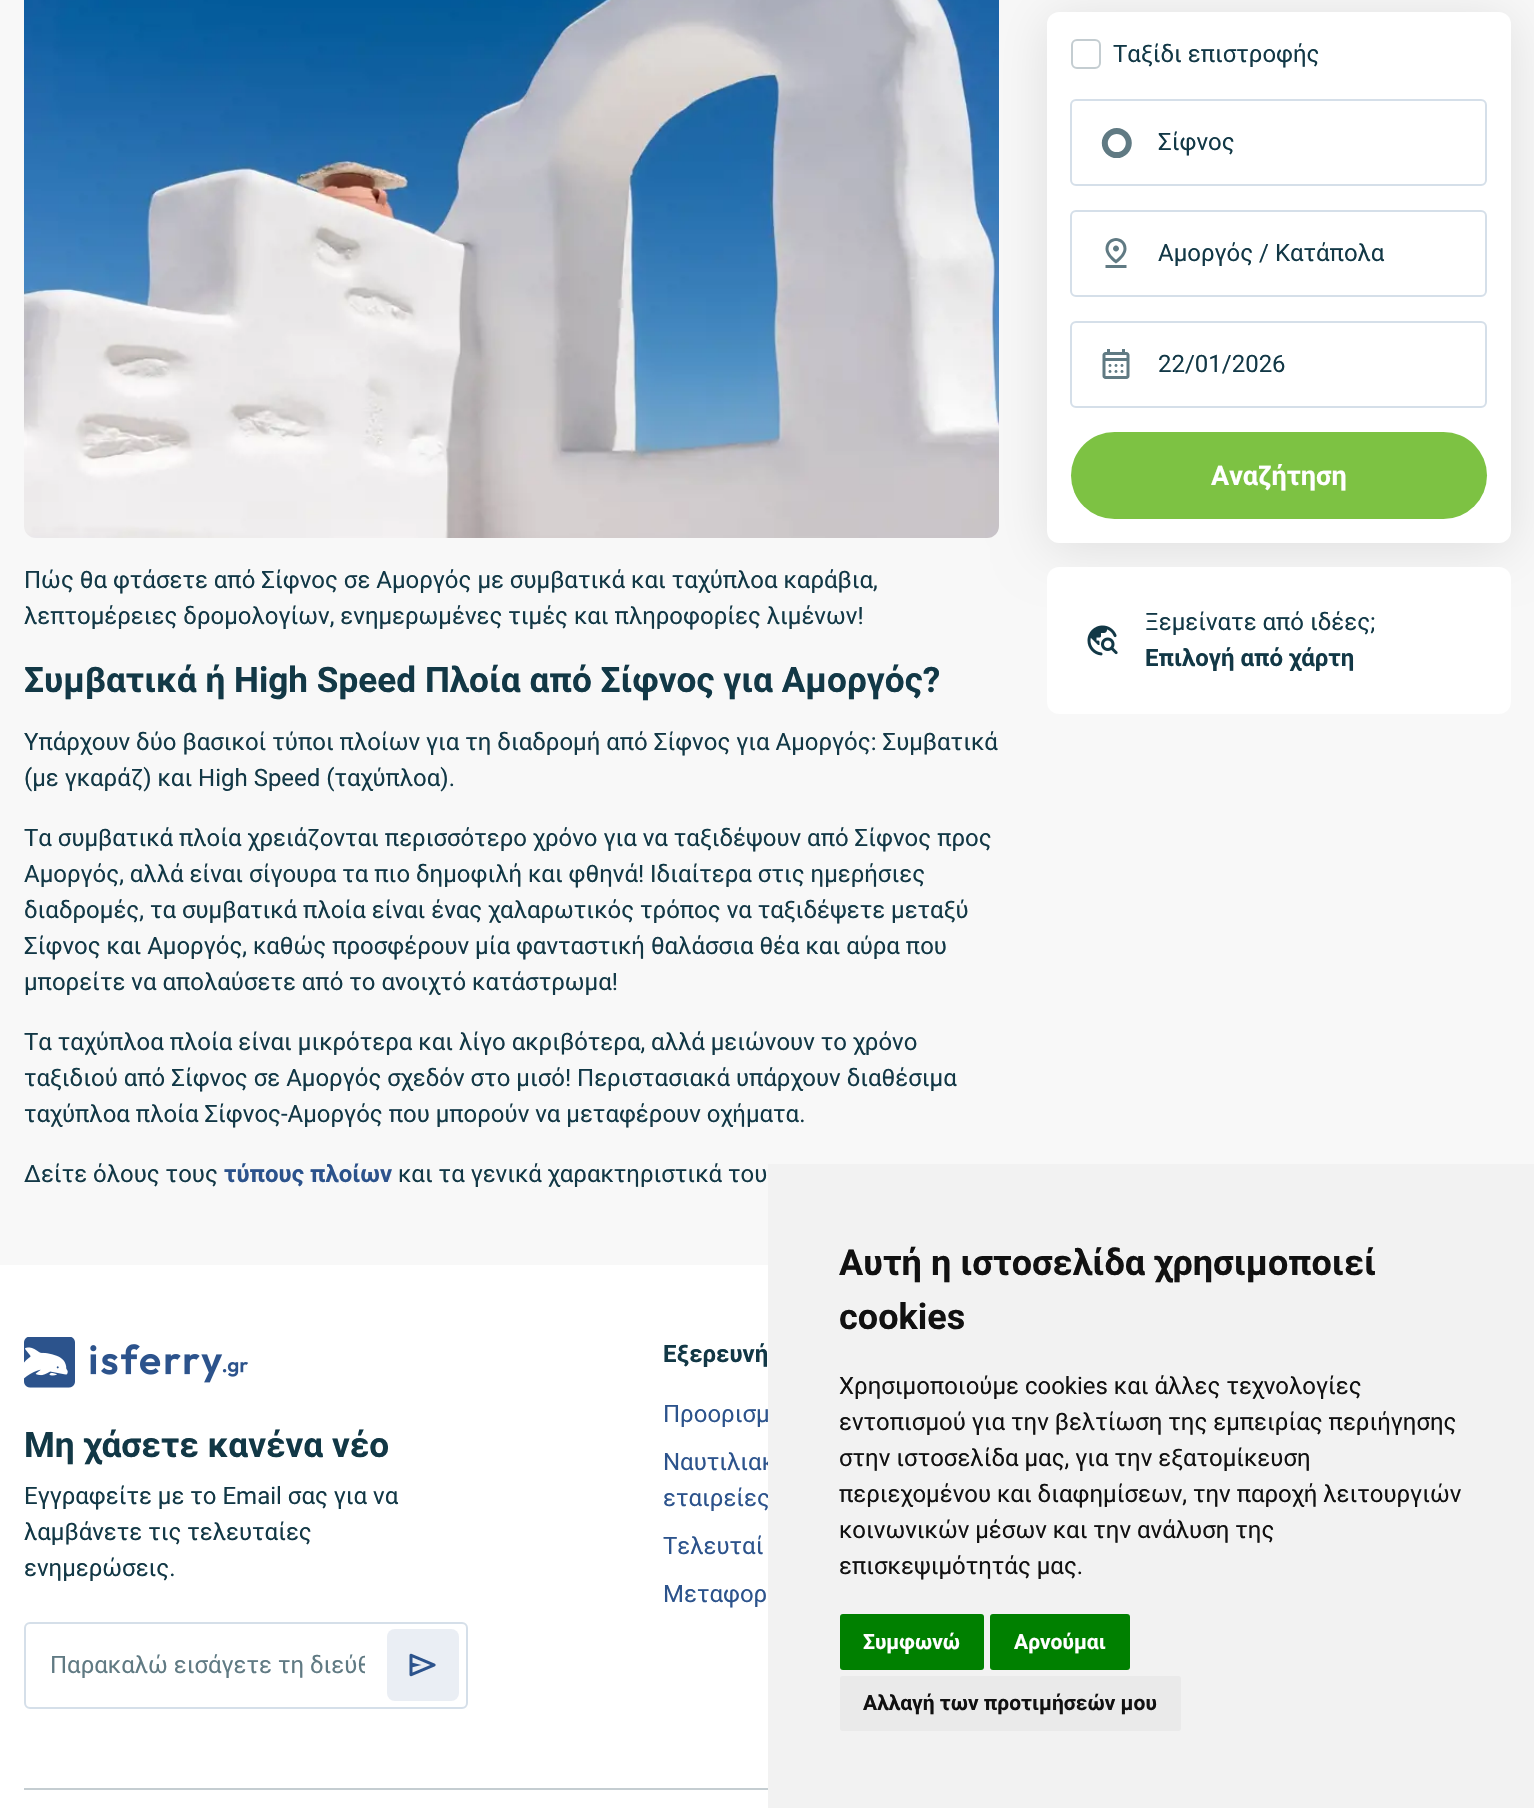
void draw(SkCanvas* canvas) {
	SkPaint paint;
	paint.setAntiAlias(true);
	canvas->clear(0xfff8f8f8);
	canvas->drawImageRect(SkImages::DeferredFromEncodedData(SkData::MakeFromFileName("img5.png")), SkRect::MakeXYWH(24, 0, 975, 538), SkSamplingOptions());
	paint.setColor(0x1a000000);
	paint.setMaskFilter(SkMaskFilter::MakeBlur(kNormal_SkBlurStyle, 26));
	canvas->drawRoundRect(SkRect::MakeXYWH(1047, 18, 464, 531), 12, 12, paint);
	paint.setMaskFilter(nullptr);
	paint.setColor(0xffffffff);
	canvas->drawRoundRect(SkRect::MakeXYWH(1047, 12, 464, 531), 12, 12, paint);
	paint.setStroke(true);
	paint.setStrokeWidth(2);
	paint.setColor(0xffc4cdd1);
	canvas->drawRoundRect(SkRect::MakeXYWH(1072, 40, 28, 28), 5, 5, paint);
	SkFont f1(fontMgr->matchFamilyStyle("Roboto", SkFontStyle::Normal()), 24);
	f1.setSubpixel(true);
	paint.setStroke(false);
	paint.setColor(0xff123846);
	canvas->drawString("Ταξίδι επιστροφής", 1113, 62, f1, paint);
	paint.setStroke(true);
	paint.setColor(0xffd5dfe9);
	canvas->drawRoundRect(SkRect::MakeXYWH(1071, 100, 415, 85), 5, 5, paint);
	canvas->drawImageRect(SkImages::DeferredFromEncodedData(SkData::MakeFromFileName("img1.png")), SkRect::MakeXYWH(1101, 128, 31, 30), SkSamplingOptions());
	paint.setStroke(false);
	paint.setColor(0xff123846);
	canvas->drawString("Σίφνος", 1158, 150, f1, paint);
	paint.setStroke(true);
	paint.setColor(0xffd5dfe9);
	canvas->drawRoundRect(SkRect::MakeXYWH(1071, 211, 415, 85), 5, 5, paint);
	canvas->drawImageRect(SkImages::DeferredFromEncodedData(SkData::MakeFromFileName("img2.png")), SkRect::MakeXYWH(1105, 238, 22, 30), SkSamplingOptions());
	paint.setStroke(false);
	paint.setColor(0xff123846);
	canvas->drawString("Αμοργός / Κατάπολα", 1158, 261, f1, paint);
	paint.setStroke(true);
	paint.setColor(0xffd5dfe9);
	canvas->drawRoundRect(SkRect::MakeXYWH(1071, 322, 415, 85), 5, 5, paint);
	canvas->drawImageRect(SkImages::DeferredFromEncodedData(SkData::MakeFromFileName("img3.png")), SkRect::MakeXYWH(1102, 349, 28, 30), SkSamplingOptions());
	paint.setStroke(false);
	paint.setColor(0xff123846);
	canvas->drawString("22/01/2026", 1158, 372, f1, paint);
	paint.setColor(0xff7dc243);
	canvas->drawRoundRect(SkRect::MakeXYWH(1071, 432, 416, 87), 43.5, 43.5, paint);
	SkFont f2(fontMgr->matchFamilyStyle("Roboto", SkFontStyle::Bold()), 27);
	f2.setSubpixel(true);
	paint.setColor(0xffffffff);
	canvas->drawString("Αναζήτηση", 1211, 485, f2, paint);
	canvas->drawRoundRect(SkRect::MakeXYWH(1047, 567, 464, 147), 12, 12, paint);
	canvas->drawImageRect(SkImages::DeferredFromEncodedData(SkData::MakeFromFileName("img4.png")), SkRect::MakeXYWH(1087, 625, 31, 31), SkSamplingOptions());
	paint.setColor(0xff123846);
	canvas->drawString("Ξεμείνατε από ιδέες;", 1145, 630, f1, paint);
	SkFont f3(fontMgr->matchFamilyStyle("Roboto", SkFontStyle::Bold()), 24);
	f3.setSubpixel(true);
	canvas->drawString("Επιλογή από χάρτη", 1145, 666, f3, paint);
	canvas->drawString("Πώς θα φτάσετε από Σίφνος σε Αμοργός με συμβατικά και ταχύπλοα καράβια,", 24, 588, f1, paint);
	canvas->drawString("λεπτομέρειες δρομολογίων, ενημερωμένες τιμές και πληροφορίες λιμένων!", 24, 624, f1, paint);
	SkFont f4(fontMgr->matchFamilyStyle("Roboto", SkFontStyle::Bold()), 35.2);
	f4.setSubpixel(true);
	canvas->drawString("Συμβατικά ή High Speed Πλοία από Σίφνος για Αμοργός?", 24, 692, f4, paint);
	canvas->drawString("Υπάρχουν δύο βασικοί τύποι πλοίων για τη διαδρομή από Σίφνος για Αμοργός: Συμβατικά", 24, 750, f1, paint);
	canvas->drawString("(με γκαράζ) και High Speed (ταχύπλοα).", 24, 786, f1, paint);
	canvas->drawString("Τα συμβατικά πλοία χρειάζονται περισσότερο χρόνο για να ταξιδέψουν από Σίφνος προς", 24, 846, f1, paint);
	canvas->drawString("Αμοργός, αλλά είναι σίγουρα τα πιο δημοφιλή και φθηνά! Ιδιαίτερα στις ημερήσιες", 24, 882, f1, paint);
	canvas->drawString("διαδρομές, τα συμβατικά πλοία είναι ένας χαλαρωτικός τρόπος να ταξιδέψετε μεταξύ", 24, 918, f1, paint);
	canvas->drawString("Σίφνος και Αμοργός, καθώς προσφέρουν μία φανταστική θαλάσσια θέα και αύρα που", 24, 954, f1, paint);
	canvas->drawString("μπορείτε να απολαύσετε από το ανοιχτό κατάστρωμα!", 24, 990, f1, paint);
	canvas->drawString("Τα ταχύπλοα πλοία είναι μικρότερα και λίγο ακριβότερα, αλλά μειώνουν το χρόνο", 24, 1050, f1, paint);
	canvas->drawString("ταξιδιού από Σίφνος σε Αμοργός σχεδόν στο μισό! Περιστασιακά υπάρχουν διαθέσιμα", 24, 1086, f1, paint);
	canvas->drawString("ταχύπλοα πλοία Σίφνος-Αμοργός που μπορούν να μεταφέρουν οχήματα.", 24, 1122, f1, paint);
	canvas->drawString("Δείτε όλους τους", 24, 1182, f1, paint);
	paint.setColor(0xff2c538c);
	canvas->drawString("τύπους πλοίων", 224, 1182, f3, paint);
	paint.setColor(0xff123846);
	canvas->drawString("και τα γενικά χαρακτηριστικά του", 398, 1182, f1, paint);
	paint.setColor(0xffffffff);
	canvas->drawRect(SkRect::MakeXYWH(0, 1265, 768, 543), paint);
	canvas->drawImageRect(SkImages::DeferredFromEncodedData(SkData::MakeFromFileName("img6.png")), SkRect::MakeXYWH(24, 1337, 225, 51), SkSamplingOptions());
	paint.setColor(0xff123846);
	canvas->drawString("Μη χάσετε κανένα νέο", 24, 1457, f4, paint);
	canvas->drawString("Εγγραφείτε με το Email σας για να", 24, 1504, f1, paint);
	canvas->drawString("λαμβάνετε τις τελευταίες", 24, 1540, f1, paint);
	canvas->drawString("ενημερώσεις.", 24, 1576, f1, paint);
	paint.setStroke(true);
	paint.setColor(0xffd5dfe9);
	canvas->drawRoundRect(SkRect::MakeXYWH(25, 1623, 442, 85), 5, 5, paint);
	canvas->save();
	canvas->clipRect(SkRect::MakeXYWH(50, 1650, 315, 29));
	paint.setStroke(false);
	paint.setColor(0xff607a83);
	canvas->drawString("Παρακαλώ εισάγετε τη διεύθ", 50, 1673, f1, paint);
	canvas->restore();
	paint.setColor(0xffeaeef4);
	canvas->drawRoundRect(SkRect::MakeXYWH(387, 1629, 72, 72), 8, 8, paint);
	canvas->drawImageRect(SkImages::DeferredFromEncodedData(SkData::MakeFromFileName("img7.png")), SkRect::MakeXYWH(409, 1653, 27, 24), SkSamplingOptions());
	paint.setColor(0xff123846);
	canvas->drawString("Εξερευνή", 663, 1362, f3, paint);
	paint.setColor(0xff2c538c);
	canvas->drawString("Προορισμ", 663, 1422, f1, paint);
	canvas->drawString("Ναυτιλιακ", 663, 1470, f1, paint);
	canvas->drawString("εταιρείες", 663, 1506, f1, paint);
	canvas->drawString("Τελευταί", 663, 1554, f1, paint);
	canvas->drawString("Μεταφορ", 663, 1602, f1, paint);
	paint.setColor(0xffc4cdd1);
	canvas->drawRect(SkRect::MakeXYWH(24, 1788, 744, 2), paint);
	paint.setColor(0xfff2f2f2);
	canvas->drawRect(SkRect::MakeXYWH(768, 1164, 766, 644), paint);
	SkFont f5(fontMgr->matchFamilyStyle("Roboto", SkFontStyle::Bold()), 36);
	f5.setSubpixel(true);
	paint.setColor(0xff111111);
	canvas->drawString("Αυτή η ιστοσελίδα χρησιμοποιεί", 839, 1275, f5, paint);
	canvas->drawString("cookies", 839, 1329, f5, paint);
	canvas->drawString("Χρησιμοποιούμε cookies και άλλες τεχνολογίες", 839, 1394, f1, paint);
	canvas->drawString("εντοπισμού για την βελτίωση της εμπειρίας περιήγησης", 839, 1430, f1, paint);
	canvas->drawString("στην ιστοσελίδα μας, για την εξατομίκευση", 839, 1466, f1, paint);
	canvas->drawString("περιεχομένου και διαφημίσεων, την παροχή λειτουργιών", 839, 1502, f1, paint);
	canvas->drawString("κοινωνικών μέσων και την ανάλυση της", 839, 1538, f1, paint);
	canvas->drawString("επισκεψιμότητάς μας.", 839, 1574, f1, paint);
	paint.setColor(0xff008000);
	canvas->drawRoundRect(SkRect::MakeXYWH(840, 1614, 144, 56), 3, 3, paint);
	SkFont f6(fontMgr->matchFamilyStyle("Roboto", SkFontStyle::Bold()), 21);
	f6.setSubpixel(true);
	paint.setColor(0xffffffff);
	canvas->drawString("Συμφωνώ", 863, 1649, f6, paint);
	paint.setColor(0xff008000);
	canvas->drawRoundRect(SkRect::MakeXYWH(990, 1614, 140, 56), 3, 3, paint);
	paint.setColor(0xffffffff);
	canvas->drawString("Αρνούμαι", 1014, 1649, f6, paint);
	paint.setColor(0xffeaeaea);
	canvas->drawRoundRect(SkRect::MakeXYWH(840, 1676, 341, 55), 3, 3, paint);
	paint.setColor(0xff111111);
	canvas->drawString("Αλλαγή των προτιμήσεών μου", 863, 1710, f6, paint);
}
